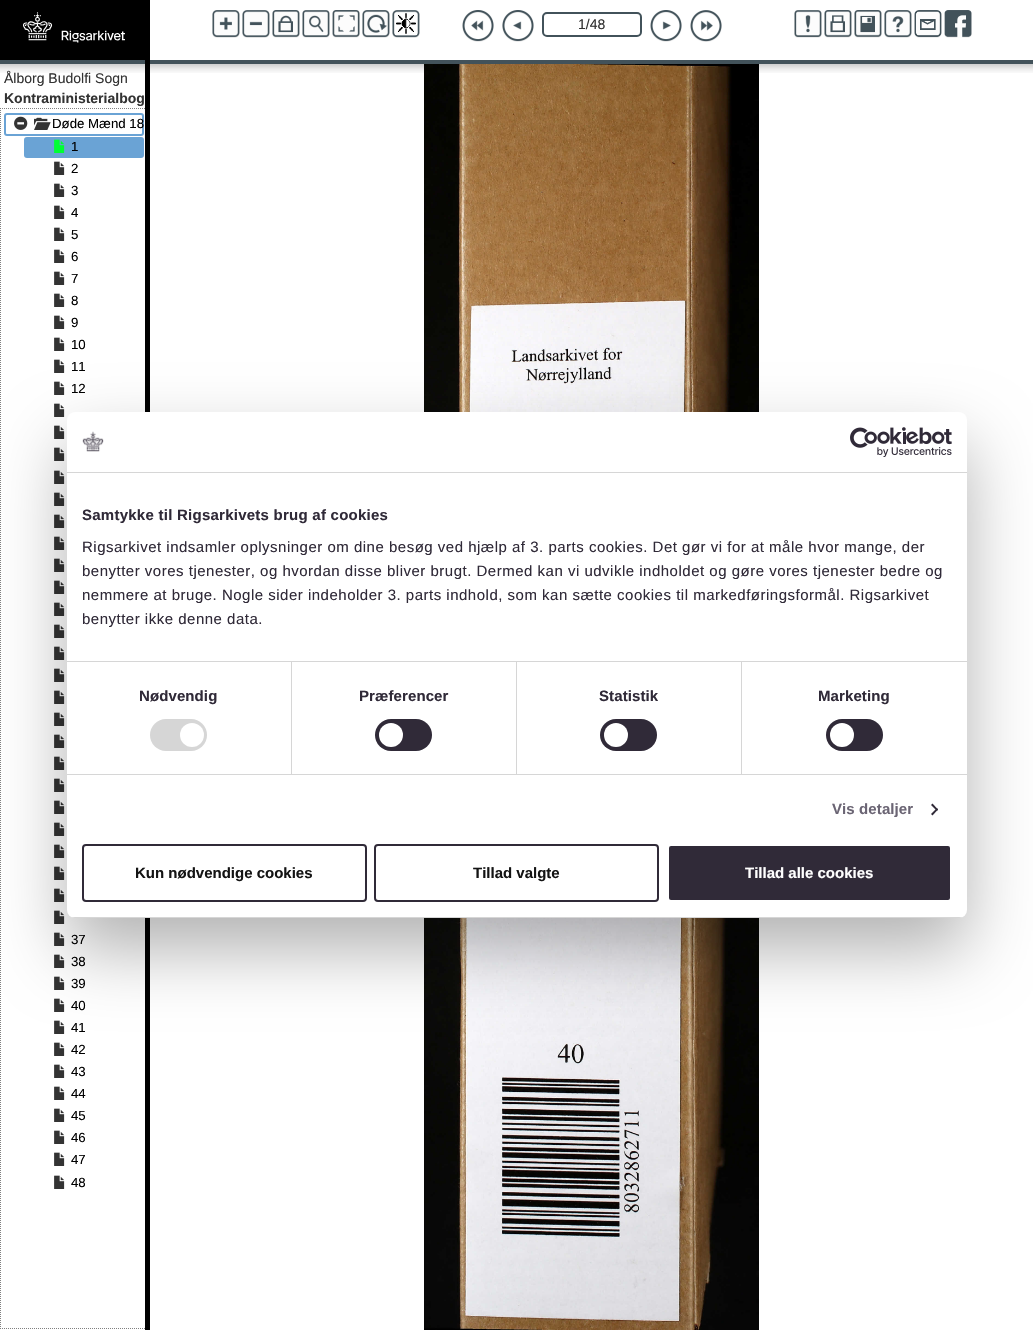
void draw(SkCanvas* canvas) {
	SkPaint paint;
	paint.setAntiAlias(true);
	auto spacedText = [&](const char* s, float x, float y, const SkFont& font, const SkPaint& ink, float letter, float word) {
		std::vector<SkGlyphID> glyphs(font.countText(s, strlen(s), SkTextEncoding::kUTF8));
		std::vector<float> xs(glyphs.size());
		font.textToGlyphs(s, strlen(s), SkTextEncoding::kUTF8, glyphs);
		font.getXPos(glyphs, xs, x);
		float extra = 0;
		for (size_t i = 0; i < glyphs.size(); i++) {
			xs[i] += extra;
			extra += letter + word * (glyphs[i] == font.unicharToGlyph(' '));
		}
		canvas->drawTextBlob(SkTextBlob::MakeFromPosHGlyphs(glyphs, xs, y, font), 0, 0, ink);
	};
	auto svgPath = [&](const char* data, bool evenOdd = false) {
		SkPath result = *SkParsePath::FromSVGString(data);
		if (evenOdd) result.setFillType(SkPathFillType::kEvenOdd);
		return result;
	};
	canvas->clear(0xffffffff);
	canvas->drawImageRect(SkImages::DeferredFromEncodedData(SkData::MakeFromFileName("img1.png")), SkRect::MakeXYWH(150, 60, 883, 13), SkSamplingOptions());
	canvas->drawImageRect(SkImages::DeferredFromEncodedData(SkData::MakeFromFileName("img2.png")), SkRect::MakeXYWH(212, 10, 28, 28), SkSamplingOptions());
	canvas->drawImageRect(SkImages::DeferredFromEncodedData(SkData::MakeFromFileName("img3.png")), SkRect::MakeXYWH(242, 10, 28, 28), SkSamplingOptions());
	canvas->drawImageRect(SkImages::DeferredFromEncodedData(SkData::MakeFromFileName("img4.png")), SkRect::MakeXYWH(272, 10, 28, 28), SkSamplingOptions());
	canvas->drawImageRect(SkImages::DeferredFromEncodedData(SkData::MakeFromFileName("img5.png")), SkRect::MakeXYWH(302, 10, 28, 28), SkSamplingOptions());
	canvas->drawImageRect(SkImages::DeferredFromEncodedData(SkData::MakeFromFileName("img6.png")), SkRect::MakeXYWH(332, 10, 28, 28), SkSamplingOptions());
	canvas->drawImageRect(SkImages::DeferredFromEncodedData(SkData::MakeFromFileName("img7.png")), SkRect::MakeXYWH(362, 10, 28, 28), SkSamplingOptions());
	canvas->drawImageRect(SkImages::DeferredFromEncodedData(SkData::MakeFromFileName("img8.png")), SkRect::MakeXYWH(392, 10, 28, 28), SkSamplingOptions());
	canvas->drawImageRect(SkImages::DeferredFromEncodedData(SkData::MakeFromFileName("img9.png")), SkRect::MakeXYWH(462, 10, 32, 32), SkSamplingOptions());
	canvas->drawImageRect(SkImages::DeferredFromEncodedData(SkData::MakeFromFileName("img10.png")), SkRect::MakeXYWH(502, 10, 32, 32), SkSamplingOptions());
	paint.setStroke(true);
	paint.setStrokeWidth(2);
	paint.setColor(0xff42525a);
	canvas->drawRoundRect(SkRect::MakeXYWH(543, 13, 98, 23), 4, 4, paint);
	SkFont f1(fontMgr->matchFamilyStyle("Liberation Sans", SkFontStyle::Normal()), 14);
	f1.setSubpixel(true);
	paint.setStroke(false);
	paint.setColor(0xff333333);
	canvas->drawString("1/48", 578, 29, f1, paint);
	canvas->drawImageRect(SkImages::DeferredFromEncodedData(SkData::MakeFromFileName("img11.png")), SkRect::MakeXYWH(650, 10, 32, 32), SkSamplingOptions());
	canvas->drawImageRect(SkImages::DeferredFromEncodedData(SkData::MakeFromFileName("img12.png")), SkRect::MakeXYWH(690, 10, 32, 32), SkSamplingOptions());
	canvas->drawImageRect(SkImages::DeferredFromEncodedData(SkData::MakeFromFileName("img13.png")), SkRect::MakeXYWH(794, 10, 28, 28), SkSamplingOptions());
	canvas->drawImageRect(SkImages::DeferredFromEncodedData(SkData::MakeFromFileName("img14.png")), SkRect::MakeXYWH(824, 10, 28, 28), SkSamplingOptions());
	canvas->drawImageRect(SkImages::DeferredFromEncodedData(SkData::MakeFromFileName("img15.png")), SkRect::MakeXYWH(854, 10, 28, 28), SkSamplingOptions());
	canvas->drawImageRect(SkImages::DeferredFromEncodedData(SkData::MakeFromFileName("img16.png")), SkRect::MakeXYWH(884, 10, 28, 28), SkSamplingOptions());
	canvas->drawImageRect(SkImages::DeferredFromEncodedData(SkData::MakeFromFileName("img17.png")), SkRect::MakeXYWH(914, 10, 28, 28), SkSamplingOptions());
	canvas->drawImageRect(SkImages::DeferredFromEncodedData(SkData::MakeFromFileName("img18.png")), SkRect::MakeXYWH(944, 10, 28, 28), SkSamplingOptions());
	canvas->drawImageRect(SkImages::DeferredFromEncodedData(SkData::MakeFromFileName("img19.png")), SkRect::MakeXYWH(424, 64, 335, 1266), SkSamplingOptions());
	canvas->drawImageRect(SkImages::DeferredFromEncodedData(SkData::MakeFromFileName("img20.png")), SkRect::MakeXYWH(0, 60, 145, 13), SkSamplingOptions());
	paint.setColor(0xff000000);
	canvas->drawRect(SkRect::MakeXYWH(0, 0, 145, 60), paint);
	canvas->drawImageRect(SkImages::DeferredFromEncodedData(SkData::MakeFromFileName("img21.png")), SkRect::MakeXYWH(23, 12, 102, 31), SkSamplingOptions());
	paint.setStroke(true);
	paint.setStrokeWidth(1);
	paint.setColor(0xff808080);
	paint.setPathEffect(SkDashPathEffect::Make({{1, 1}}, 0));
	canvas->drawPath(svgPath("M0 108.5H148"), paint);
	paint.setPathEffect(nullptr);
	paint.setPathEffect(SkDashPathEffect::Make({{1, 1}}, 0));
	canvas->drawPath(svgPath("M0 1328.5H148"), paint);
	paint.setPathEffect(nullptr);
	paint.setStroke(false);
	paint.setColor(0xff000000);
	canvas->drawRect(SkRect::MakeXYWH(145, 0, 5, 1330), paint);
	paint.setColor(0xff333333);
	canvas->drawString("Ålborg Budolfi Sogn", 4, 83, f1, paint);
	SkFont f2(fontMgr->matchFamilyStyle("Liberation Sans", SkFontStyle::Bold()), 14);
	f2.setSubpixel(true);
	canvas->drawString("Kontraministerialbog", 4, 103, f2, paint);
	paint.setStroke(true);
	paint.setColor(0xff808080);
	paint.setPathEffect(SkDashPathEffect::Make({{1, 1}}, 0));
	canvas->drawPath(svgPath("M.5 108V1329"), paint);
	paint.setPathEffect(nullptr);
	paint.setStrokeWidth(2);
	paint.setColor(0xff6aa3d5);
	canvas->drawRoundRect(SkRect::MakeXYWH(5, 114, 138, 21), 2, 2, paint);
	canvas->drawImageRect(SkImages::DeferredFromEncodedData(SkData::MakeFromFileName("img22.png")), SkRect::MakeXYWH(14, 116, 14, 14), SkSamplingOptions());
	canvas->drawImageRect(SkImages::DeferredFromEncodedData(SkData::MakeFromFileName("img23.png")), SkRect::MakeXYWH(34, 117, 17, 13), SkSamplingOptions());
	SkFont f3(fontMgr->matchFamilyStyle("Liberation Sans", SkFontStyle::Normal()), 13.25);
	f3.setSubpixel(true);
	paint.setStroke(false);
	paint.setColor(0xff000000);
	canvas->drawString("Døde Mænd 18", 52, 128, f3, paint);
	paint.setColor(0xff6aa3d5);
	canvas->drawRoundRect(SkRect::MakeXYWH(24, 137, 120, 21), 3, 3, paint);
	canvas->drawImageRect(SkImages::DeferredFromEncodedData(SkData::MakeFromFileName("img24.png")), SkRect::MakeXYWH(54, 139, 11, 14), SkSamplingOptions());
	paint.setColor(0xff000000);
	canvas->drawString("1", 71, 151, f3, paint);
	canvas->drawImageRect(SkImages::DeferredFromEncodedData(SkData::MakeFromFileName("img25.png")), SkRect::MakeXYWH(54, 161, 11, 14), SkSamplingOptions());
	canvas->drawString("2", 71, 173, f3, paint);
	canvas->drawImageRect(SkImages::DeferredFromEncodedData(SkData::MakeFromFileName("img25.png")), SkRect::MakeXYWH(54, 183, 11, 14), SkSamplingOptions());
	canvas->drawString("3", 71, 195, f3, paint);
	canvas->drawImageRect(SkImages::DeferredFromEncodedData(SkData::MakeFromFileName("img25.png")), SkRect::MakeXYWH(54, 205, 11, 14), SkSamplingOptions());
	canvas->drawString("4", 71, 217, f3, paint);
	canvas->drawImageRect(SkImages::DeferredFromEncodedData(SkData::MakeFromFileName("img25.png")), SkRect::MakeXYWH(54, 227, 11, 14), SkSamplingOptions());
	canvas->drawString("5", 71, 239, f3, paint);
	canvas->drawImageRect(SkImages::DeferredFromEncodedData(SkData::MakeFromFileName("img25.png")), SkRect::MakeXYWH(54, 249, 11, 14), SkSamplingOptions());
	canvas->drawString("6", 71, 261, f3, paint);
	canvas->drawImageRect(SkImages::DeferredFromEncodedData(SkData::MakeFromFileName("img25.png")), SkRect::MakeXYWH(54, 271, 11, 14), SkSamplingOptions());
	canvas->drawString("7", 71, 283, f3, paint);
	canvas->drawImageRect(SkImages::DeferredFromEncodedData(SkData::MakeFromFileName("img25.png")), SkRect::MakeXYWH(54, 293, 11, 14), SkSamplingOptions());
	canvas->drawString("8", 71, 305, f3, paint);
	canvas->drawImageRect(SkImages::DeferredFromEncodedData(SkData::MakeFromFileName("img25.png")), SkRect::MakeXYWH(54, 315, 11, 14), SkSamplingOptions());
	canvas->drawString("9", 71, 327, f3, paint);
	canvas->drawImageRect(SkImages::DeferredFromEncodedData(SkData::MakeFromFileName("img25.png")), SkRect::MakeXYWH(54, 337, 11, 14), SkSamplingOptions());
	canvas->drawString("10", 71, 349, f3, paint);
	canvas->drawImageRect(SkImages::DeferredFromEncodedData(SkData::MakeFromFileName("img25.png")), SkRect::MakeXYWH(54, 359, 11, 14), SkSamplingOptions());
	canvas->drawString("11", 71, 371, f3, paint);
	canvas->drawImageRect(SkImages::DeferredFromEncodedData(SkData::MakeFromFileName("img25.png")), SkRect::MakeXYWH(54, 381, 11, 14), SkSamplingOptions());
	canvas->drawString("12", 71, 393, f3, paint);
	canvas->drawImageRect(SkImages::DeferredFromEncodedData(SkData::MakeFromFileName("img25.png")), SkRect::MakeXYWH(54, 403, 11, 14), SkSamplingOptions());
	canvas->drawImageRect(SkImages::DeferredFromEncodedData(SkData::MakeFromFileName("img25.png")), SkRect::MakeXYWH(54, 425, 11, 14), SkSamplingOptions());
	canvas->drawImageRect(SkImages::DeferredFromEncodedData(SkData::MakeFromFileName("img25.png")), SkRect::MakeXYWH(54, 447, 11, 14), SkSamplingOptions());
	canvas->drawImageRect(SkImages::DeferredFromEncodedData(SkData::MakeFromFileName("img25.png")), SkRect::MakeXYWH(54, 470, 11, 14), SkSamplingOptions());
	canvas->drawImageRect(SkImages::DeferredFromEncodedData(SkData::MakeFromFileName("img25.png")), SkRect::MakeXYWH(54, 492, 11, 14), SkSamplingOptions());
	canvas->drawImageRect(SkImages::DeferredFromEncodedData(SkData::MakeFromFileName("img25.png")), SkRect::MakeXYWH(54, 514, 11, 14), SkSamplingOptions());
	canvas->drawImageRect(SkImages::DeferredFromEncodedData(SkData::MakeFromFileName("img25.png")), SkRect::MakeXYWH(54, 536, 11, 14), SkSamplingOptions());
	canvas->drawImageRect(SkImages::DeferredFromEncodedData(SkData::MakeFromFileName("img25.png")), SkRect::MakeXYWH(54, 558, 11, 14), SkSamplingOptions());
	canvas->drawImageRect(SkImages::DeferredFromEncodedData(SkData::MakeFromFileName("img25.png")), SkRect::MakeXYWH(54, 580, 11, 14), SkSamplingOptions());
	canvas->drawImageRect(SkImages::DeferredFromEncodedData(SkData::MakeFromFileName("img25.png")), SkRect::MakeXYWH(54, 602, 11, 14), SkSamplingOptions());
	canvas->drawImageRect(SkImages::DeferredFromEncodedData(SkData::MakeFromFileName("img25.png")), SkRect::MakeXYWH(54, 624, 11, 14), SkSamplingOptions());
	canvas->drawImageRect(SkImages::DeferredFromEncodedData(SkData::MakeFromFileName("img25.png")), SkRect::MakeXYWH(54, 646, 11, 14), SkSamplingOptions());
	canvas->drawImageRect(SkImages::DeferredFromEncodedData(SkData::MakeFromFileName("img25.png")), SkRect::MakeXYWH(54, 668, 11, 14), SkSamplingOptions());
	canvas->drawImageRect(SkImages::DeferredFromEncodedData(SkData::MakeFromFileName("img25.png")), SkRect::MakeXYWH(54, 690, 11, 14), SkSamplingOptions());
	canvas->drawImageRect(SkImages::DeferredFromEncodedData(SkData::MakeFromFileName("img25.png")), SkRect::MakeXYWH(54, 712, 11, 14), SkSamplingOptions());
	canvas->drawImageRect(SkImages::DeferredFromEncodedData(SkData::MakeFromFileName("img25.png")), SkRect::MakeXYWH(54, 734, 11, 14), SkSamplingOptions());
	canvas->drawImageRect(SkImages::DeferredFromEncodedData(SkData::MakeFromFileName("img25.png")), SkRect::MakeXYWH(54, 756, 11, 14), SkSamplingOptions());
	canvas->drawImageRect(SkImages::DeferredFromEncodedData(SkData::MakeFromFileName("img25.png")), SkRect::MakeXYWH(54, 778, 11, 14), SkSamplingOptions());
	canvas->drawImageRect(SkImages::DeferredFromEncodedData(SkData::MakeFromFileName("img25.png")), SkRect::MakeXYWH(54, 800, 11, 14), SkSamplingOptions());
	canvas->drawImageRect(SkImages::DeferredFromEncodedData(SkData::MakeFromFileName("img25.png")), SkRect::MakeXYWH(54, 822, 11, 14), SkSamplingOptions());
	canvas->drawImageRect(SkImages::DeferredFromEncodedData(SkData::MakeFromFileName("img25.png")), SkRect::MakeXYWH(54, 844, 11, 14), SkSamplingOptions());
	canvas->drawImageRect(SkImages::DeferredFromEncodedData(SkData::MakeFromFileName("img25.png")), SkRect::MakeXYWH(54, 866, 11, 14), SkSamplingOptions());
	canvas->drawImageRect(SkImages::DeferredFromEncodedData(SkData::MakeFromFileName("img25.png")), SkRect::MakeXYWH(54, 888, 11, 14), SkSamplingOptions());
	canvas->drawImageRect(SkImages::DeferredFromEncodedData(SkData::MakeFromFileName("img25.png")), SkRect::MakeXYWH(54, 910, 11, 14), SkSamplingOptions());
	canvas->drawImageRect(SkImages::DeferredFromEncodedData(SkData::MakeFromFileName("img25.png")), SkRect::MakeXYWH(54, 932, 11, 14), SkSamplingOptions());
	canvas->drawString("37", 71, 944, f3, paint);
	canvas->drawImageRect(SkImages::DeferredFromEncodedData(SkData::MakeFromFileName("img25.png")), SkRect::MakeXYWH(54, 954, 11, 14), SkSamplingOptions());
	canvas->drawString("38", 71, 966, f3, paint);
	canvas->drawImageRect(SkImages::DeferredFromEncodedData(SkData::MakeFromFileName("img25.png")), SkRect::MakeXYWH(54, 976, 11, 14), SkSamplingOptions());
	canvas->drawString("39", 71, 988, f3, paint);
	canvas->drawImageRect(SkImages::DeferredFromEncodedData(SkData::MakeFromFileName("img25.png")), SkRect::MakeXYWH(54, 998, 11, 14), SkSamplingOptions());
	canvas->drawString("40", 71, 1010, f3, paint);
	canvas->drawImageRect(SkImages::DeferredFromEncodedData(SkData::MakeFromFileName("img25.png")), SkRect::MakeXYWH(54, 1020, 11, 14), SkSamplingOptions());
	canvas->drawString("41", 71, 1032, f3, paint);
	canvas->drawImageRect(SkImages::DeferredFromEncodedData(SkData::MakeFromFileName("img25.png")), SkRect::MakeXYWH(54, 1042, 11, 14), SkSamplingOptions());
	canvas->drawString("42", 71, 1054, f3, paint);
	canvas->drawImageRect(SkImages::DeferredFromEncodedData(SkData::MakeFromFileName("img25.png")), SkRect::MakeXYWH(54, 1064, 11, 14), SkSamplingOptions());
	canvas->drawString("43", 71, 1076, f3, paint);
	canvas->drawImageRect(SkImages::DeferredFromEncodedData(SkData::MakeFromFileName("img25.png")), SkRect::MakeXYWH(54, 1086, 11, 14), SkSamplingOptions());
	canvas->drawString("44", 71, 1098, f3, paint);
	canvas->drawImageRect(SkImages::DeferredFromEncodedData(SkData::MakeFromFileName("img25.png")), SkRect::MakeXYWH(54, 1108, 11, 14), SkSamplingOptions());
	canvas->drawString("45", 71, 1120, f3, paint);
	canvas->drawImageRect(SkImages::DeferredFromEncodedData(SkData::MakeFromFileName("img25.png")), SkRect::MakeXYWH(54, 1130, 11, 14), SkSamplingOptions());
	canvas->drawString("46", 71, 1142, f3, paint);
	canvas->drawImageRect(SkImages::DeferredFromEncodedData(SkData::MakeFromFileName("img25.png")), SkRect::MakeXYWH(54, 1152, 11, 14), SkSamplingOptions());
	canvas->drawString("47", 71, 1164, f3, paint);
	canvas->drawImageRect(SkImages::DeferredFromEncodedData(SkData::MakeFromFileName("img25.png")), SkRect::MakeXYWH(54, 1175, 11, 14), SkSamplingOptions());
	canvas->drawString("48", 71, 1187, f3, paint);
	paint.setColor(0x4d000000);
	paint.setMaskFilter(SkMaskFilter::MakeBlur(kNormal_SkBlurStyle, 34));
	canvas->drawRoundRect(SkRect::MakeXYWH(67, 444, 900, 506), 8, 8, paint);
	paint.setMaskFilter(nullptr);
	paint.setColor(0xffffffff);
	canvas->drawRoundRect(SkRect::MakeXYWH(67, 412, 900, 506), 8, 8, paint);
	paint.setColor(0xffd6d6d6);
	canvas->drawRect(SkRect::MakeXYWH(67, 472, 900, 1), paint);
	canvas->drawImageRect(SkImages::DeferredFromEncodedData(SkData::MakeFromFileName("img26.png")), SkRect::MakeXYWH(82, 431, 22, 21), SkSamplingOptions());
	canvas->drawImageRect(SkImages::DeferredFromEncodedData(SkData::MakeFromFileName("img27.png")), SkRect::MakeXYWH(850, 427, 102, 30), SkSamplingOptions());
	canvas->drawRect(SkRect::MakeXYWH(67, 661, 900, 1), paint);
	SkFont f4(fontMgr->matchFamilyStyle("Liberation Sans", SkFontStyle::Bold()), 15);
	f4.setSubpixel(true);
	paint.setColor(0xff302a38);
	spacedText("Samtykke til Rigsarkivets brug af cookies", 82, 520, f4, paint, 0.25, 0);
	SkFont f5(fontMgr->matchFamilyStyle("Liberation Sans", SkFontStyle::Normal()), 15);
	f5.setSubpixel(true);
	spacedText("Rigsarkivet indsamler oplysninger om dine besøg ved hjælp af 3. parts cookies. Det gør vi for at måle hvor mange, der", 82, 552, f5, paint, 0.5, 0);
	spacedText("benytter vores tjenester, og hvordan disse bliver brugt. Dermed kan vi udvikle indholdet og gøre vores tjenester bedre og", 82, 576, f5, paint, 0.5, 0);
	spacedText("nemmere at bruge. Nogle sider indeholder 3. parts indhold, som kan sætte cookies til markedføringsformål. Rigsarkivet", 82, 600, f5, paint, 0.5, 0);
	spacedText("benytter ikke denne data.", 82, 624, f5, paint, 0.5, 0);
	paint.setColor(0xffd6d6d6);
	canvas->drawRect(SkRect::MakeXYWH(67, 774, 900, 1), paint);
	canvas->drawRect(SkRect::MakeXYWH(291, 662, 1, 112), paint);
	paint.setColor(0xff302a38);
	spacedText("Nødvendig", 139, 701, f4, paint, 0.1, 0);
	paint.setColor(0xffd6d6d6);
	canvas->drawRoundRect(SkRect::MakeXYWH(150, 719, 57, 32), 16, 16, paint);
	paint.setColor(0xffffffff);
	canvas->drawCircle(192, 735, 12, paint);
	paint.setColor(0xffd6d6d6);
	canvas->drawRect(SkRect::MakeXYWH(516, 662, 1, 112), paint);
	paint.setColor(0xff302a38);
	spacedText("Præferencer", 359, 701, f4, paint, 0.1, 0);
	canvas->drawRoundRect(SkRect::MakeXYWH(375, 719, 57, 32), 16, 16, paint);
	paint.setColor(0xffffffff);
	canvas->drawCircle(391, 735, 12, paint);
	paint.setColor(0xffd6d6d6);
	canvas->drawRect(SkRect::MakeXYWH(741, 662, 1, 112), paint);
	paint.setColor(0xff302a38);
	spacedText("Statistik", 599, 701, f4, paint, 0.1, 0);
	canvas->drawRoundRect(SkRect::MakeXYWH(600, 719, 57, 32), 16, 16, paint);
	paint.setColor(0xffffffff);
	canvas->drawCircle(616, 735, 12, paint);
	paint.setColor(0xff302a38);
	spacedText("Marketing", 818, 701, f4, paint, 0.1, 0);
	canvas->drawRoundRect(SkRect::MakeXYWH(826, 719, 57, 32), 16, 16, paint);
	paint.setColor(0xffffffff);
	canvas->drawCircle(842, 735, 12, paint);
	paint.setColor(0xff6b6574);
	spacedText("Vis detaljer", 832, 814, f4, paint, 0.1, 0);
	paint.setColor(0xff302a38);
	canvas->drawPath(svgPath("M932.5 803.5L938 809.5L937 811L931 805Z"), paint);
	canvas->drawPath(svgPath("M937 808L938 809.5L932.5 815.5L931 814Z"), paint);
	canvas->save();
	canvas->clipPath(svgPath("M75 412H959C963.5 412 967 415.5 967 420V910C967 914.5 963.5 918 959 918H75C70.5 918 67 914.5 67 910V420C67 415.5 70.5 412 75 412Z"), true);
	paint.setColor(0xffd6d6d6);
	canvas->drawRect(SkRect::MakeXYWH(67, 917, 900, 1), paint);
	canvas->restore();
	paint.setStroke(true);
	paint.setColor(0xff302a38);
	canvas->drawRoundRect(SkRect::MakeXYWH(83, 845, 283, 56), 3, 3, paint);
	paint.setStroke(false);
	paint.setColor(0xff141414);
	canvas->drawString("Kun nødvendige cookies", 135, 878, f4, paint);
	paint.setStroke(true);
	paint.setColor(0xff302a38);
	canvas->drawRoundRect(SkRect::MakeXYWH(375, 845, 283, 56), 3, 3, paint);
	paint.setStroke(false);
	paint.setColor(0xff141414);
	canvas->drawString("Tillad valgte", 473, 878, f4, paint);
	paint.setColor(0xff302a38);
	canvas->drawRoundRect(SkRect::MakeXYWH(668, 845, 283, 56), 3, 3, paint);
	paint.setStroke(true);
	paint.setColor(0xffffffff);
	canvas->drawRoundRect(SkRect::MakeXYWH(668, 845, 283, 56), 3, 3, paint);
	paint.setStroke(false);
	canvas->drawString("Tillad alle cookies", 745, 878, f4, paint);
}
